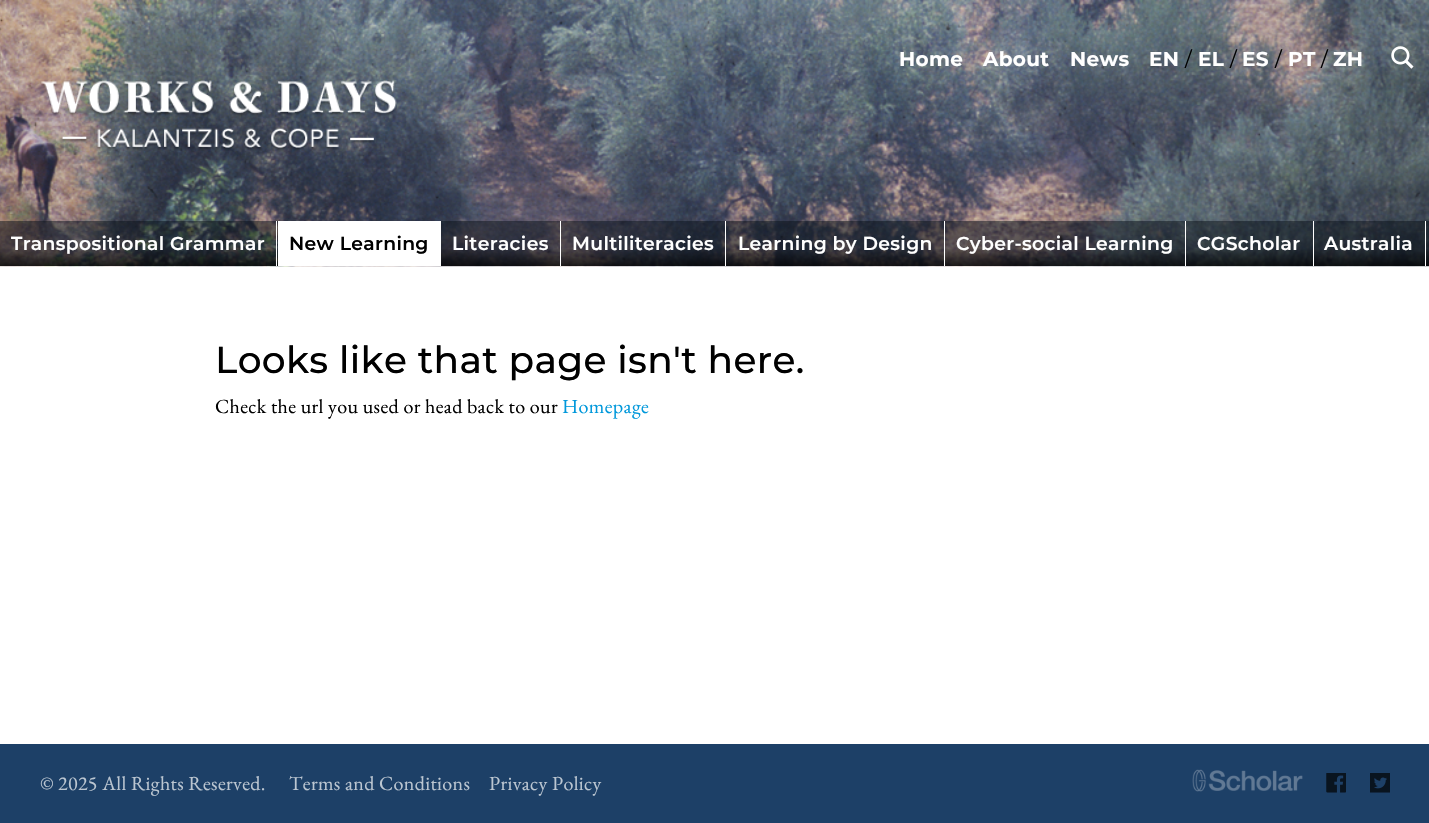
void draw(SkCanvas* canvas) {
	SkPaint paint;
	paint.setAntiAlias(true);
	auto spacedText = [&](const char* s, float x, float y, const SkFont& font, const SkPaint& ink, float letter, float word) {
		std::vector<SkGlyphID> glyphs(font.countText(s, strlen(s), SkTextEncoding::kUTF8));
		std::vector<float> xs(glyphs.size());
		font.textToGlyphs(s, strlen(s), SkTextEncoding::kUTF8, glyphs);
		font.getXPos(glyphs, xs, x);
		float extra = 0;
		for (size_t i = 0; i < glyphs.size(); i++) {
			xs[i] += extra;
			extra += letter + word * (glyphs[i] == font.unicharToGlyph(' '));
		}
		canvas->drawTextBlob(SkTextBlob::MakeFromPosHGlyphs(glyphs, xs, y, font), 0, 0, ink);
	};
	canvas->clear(0xffffffff);
	canvas->drawImageRect(SkImages::DeferredFromEncodedData(SkData::MakeFromFileName("img1.png")), SkRect::MakeXYWH(0, 0, 1429, 267), SkSamplingOptions());
	SkFont f1(fontMgr->matchFamilyStyle("Montserrat", SkFontStyle::Bold()), 20);
	f1.setSubpixel(true);
	paint.setColor(0xffffffff);
	spacedText("Home", 899, 66, f1, paint, 0.35, 0);
	spacedText("About", 983, 66, f1, paint, 0.35, 0);
	spacedText("News", 1070, 66, f1, paint, 0.35, 0);
	spacedText("EN", 1149, 66, f1, paint, 0.35, 0);
	SkFont f2(fontMgr->matchFamilyStyle("Montserrat", SkFontStyle::Normal()), 20);
	f2.setSubpixel(true);
	paint.setColor(0xff000000);
	spacedText("/", 1185, 66, f2, paint, 0.35, 0);
	paint.setColor(0xffffffff);
	spacedText("EL", 1198, 66, f1, paint, 0.35, 0);
	paint.setColor(0xff000000);
	spacedText("/", 1230, 66, f2, paint, 0.35, 0);
	paint.setColor(0xffffffff);
	spacedText("ES", 1242, 66, f1, paint, 0.35, 0);
	paint.setColor(0xff000000);
	spacedText("/", 1275, 66, f2, paint, 0.35, 0);
	paint.setColor(0xffffffff);
	spacedText("PT", 1288, 66, f1, paint, 0.35, 0);
	paint.setColor(0xff000000);
	spacedText("/", 1321, 66, f2, paint, 0.35, 0);
	paint.setColor(0xffffffff);
	spacedText("ZH", 1333, 66, f1, paint, 0.35, 0);
	canvas->drawImageRect(SkImages::DeferredFromEncodedData(SkData::MakeFromFileName("img2.png")), SkRect::MakeXYWH(1391, 46, 23, 23), SkSamplingOptions());
	canvas->drawImageRect(SkImages::DeferredFromEncodedData(SkData::MakeFromFileName("img3.png")), SkRect::MakeXYWH(41, 80, 356, 71), SkSamplingOptions());
	paint.setColor(0x80080f17);
	canvas->drawRect(SkRect::MakeXYWH(0, 221, 1429, 45), paint);
	{
		const SkColor colors[] = {0x00000000, 0xb3000000};
		const float stops[] = {0.6, 1};
		const SkPoint ends[] = {{715, 221}, {715, 266}};
		paint.setShader(SkGradientShader::MakeLinear(ends, colors, stops, 2, SkTileMode::kClamp));
		paint.setAlpha(255);
	}
	canvas->drawRect(SkRect::MakeXYWH(0, 249, 1429, 17), paint);
	paint.setShader(nullptr);
	paint.setColor(0xffffffff);
	canvas->drawRect(SkRect::MakeXYWH(276, 221, 1, 45), paint);
	SkFont f3(fontMgr->matchFamilyStyle("Montserrat", SkFontStyle(600, SkFontStyle::kNormal_Width, SkFontStyle::kUpright_Slant)), 18.75);
	f3.setSubpixel(true);
	spacedText("Transpositional Grammar", 11, 250, f3, paint, 0.35, 0);
	canvas->drawRect(SkRect::MakeXYWH(278, 221, 163, 45), paint);
	paint.setColor(0xff000000);
	spacedText("New Learning", 289, 250, f3, paint, 0.35, 0);
	paint.setColor(0xffffffff);
	canvas->drawRect(SkRect::MakeXYWH(560, 221, 1, 45), paint);
	spacedText("Literacies", 452, 250, f3, paint, 0.35, 0);
	canvas->drawRect(SkRect::MakeXYWH(725, 221, 1, 45), paint);
	spacedText("Multiliteracies", 572, 250, f3, paint, 0.35, 0);
	canvas->drawRect(SkRect::MakeXYWH(944, 221, 1, 45), paint);
	spacedText("Learning by Design", 738, 250, f3, paint, 0.35, 0);
	canvas->drawRect(SkRect::MakeXYWH(1185, 221, 1, 45), paint);
	spacedText("Cyber-social Learning", 956, 250, f3, paint, 0.35, 0);
	canvas->drawRect(SkRect::MakeXYWH(1313, 221, 1, 45), paint);
	spacedText("CGScholar", 1197, 250, f3, paint, 0.35, 0);
	canvas->drawRect(SkRect::MakeXYWH(1425, 221, 1, 45), paint);
	spacedText("Australia", 1324, 250, f3, paint, 0.35, 0);
	SkFont f4(fontMgr->matchFamilyStyle("Montserrat", SkFontStyle(500, SkFontStyle::kNormal_Width, SkFontStyle::kUpright_Slant)), 37.5);
	f4.setSubpixel(true);
	paint.setColor(0xff000000);
	spacedText("Looks like that page isn't here.", 215, 373, f4, paint, 0.35, 0);
	SkFont f5(fontMgr->matchFamilyStyle("EB Garamond", SkFontStyle::Normal()), 20);
	f5.setSubpixel(true);
	spacedText("Check the url you used or head back to our", 215, 413, f5, paint, 0.35, 0);
	paint.setColor(0xff0098db);
	spacedText("Homepage", 562, 413, f5, paint, 0.35, 0);
	paint.setColor(0xff1d4067);
	canvas->drawRect(SkRect::MakeXYWH(0, 744, 1429, 79), paint);
	paint.setColor(0xffbbc6d1);
	spacedText("© 2025 All Rights Reserved.", 40, 790, f5, paint, 0.35, 0);
	spacedText("Terms and Conditions", 289, 790, f5, paint, 0.35, 0);
	spacedText("Privacy Policy", 489, 790, f5, paint, 0.35, 0);
	canvas->drawImageRect(SkImages::DeferredFromEncodedData(SkData::MakeFromFileName("img4.png")), SkRect::MakeXYWH(1192, 769, 111, 23), SkSamplingOptions());
	canvas->drawImageRect(SkImages::DeferredFromEncodedData(SkData::MakeFromFileName("img5.png")), SkRect::MakeXYWH(1326, 773, 20, 20), SkSamplingOptions());
	canvas->drawImageRect(SkImages::DeferredFromEncodedData(SkData::MakeFromFileName("img6.png")), SkRect::MakeXYWH(1370, 773, 20, 20), SkSamplingOptions());
}
